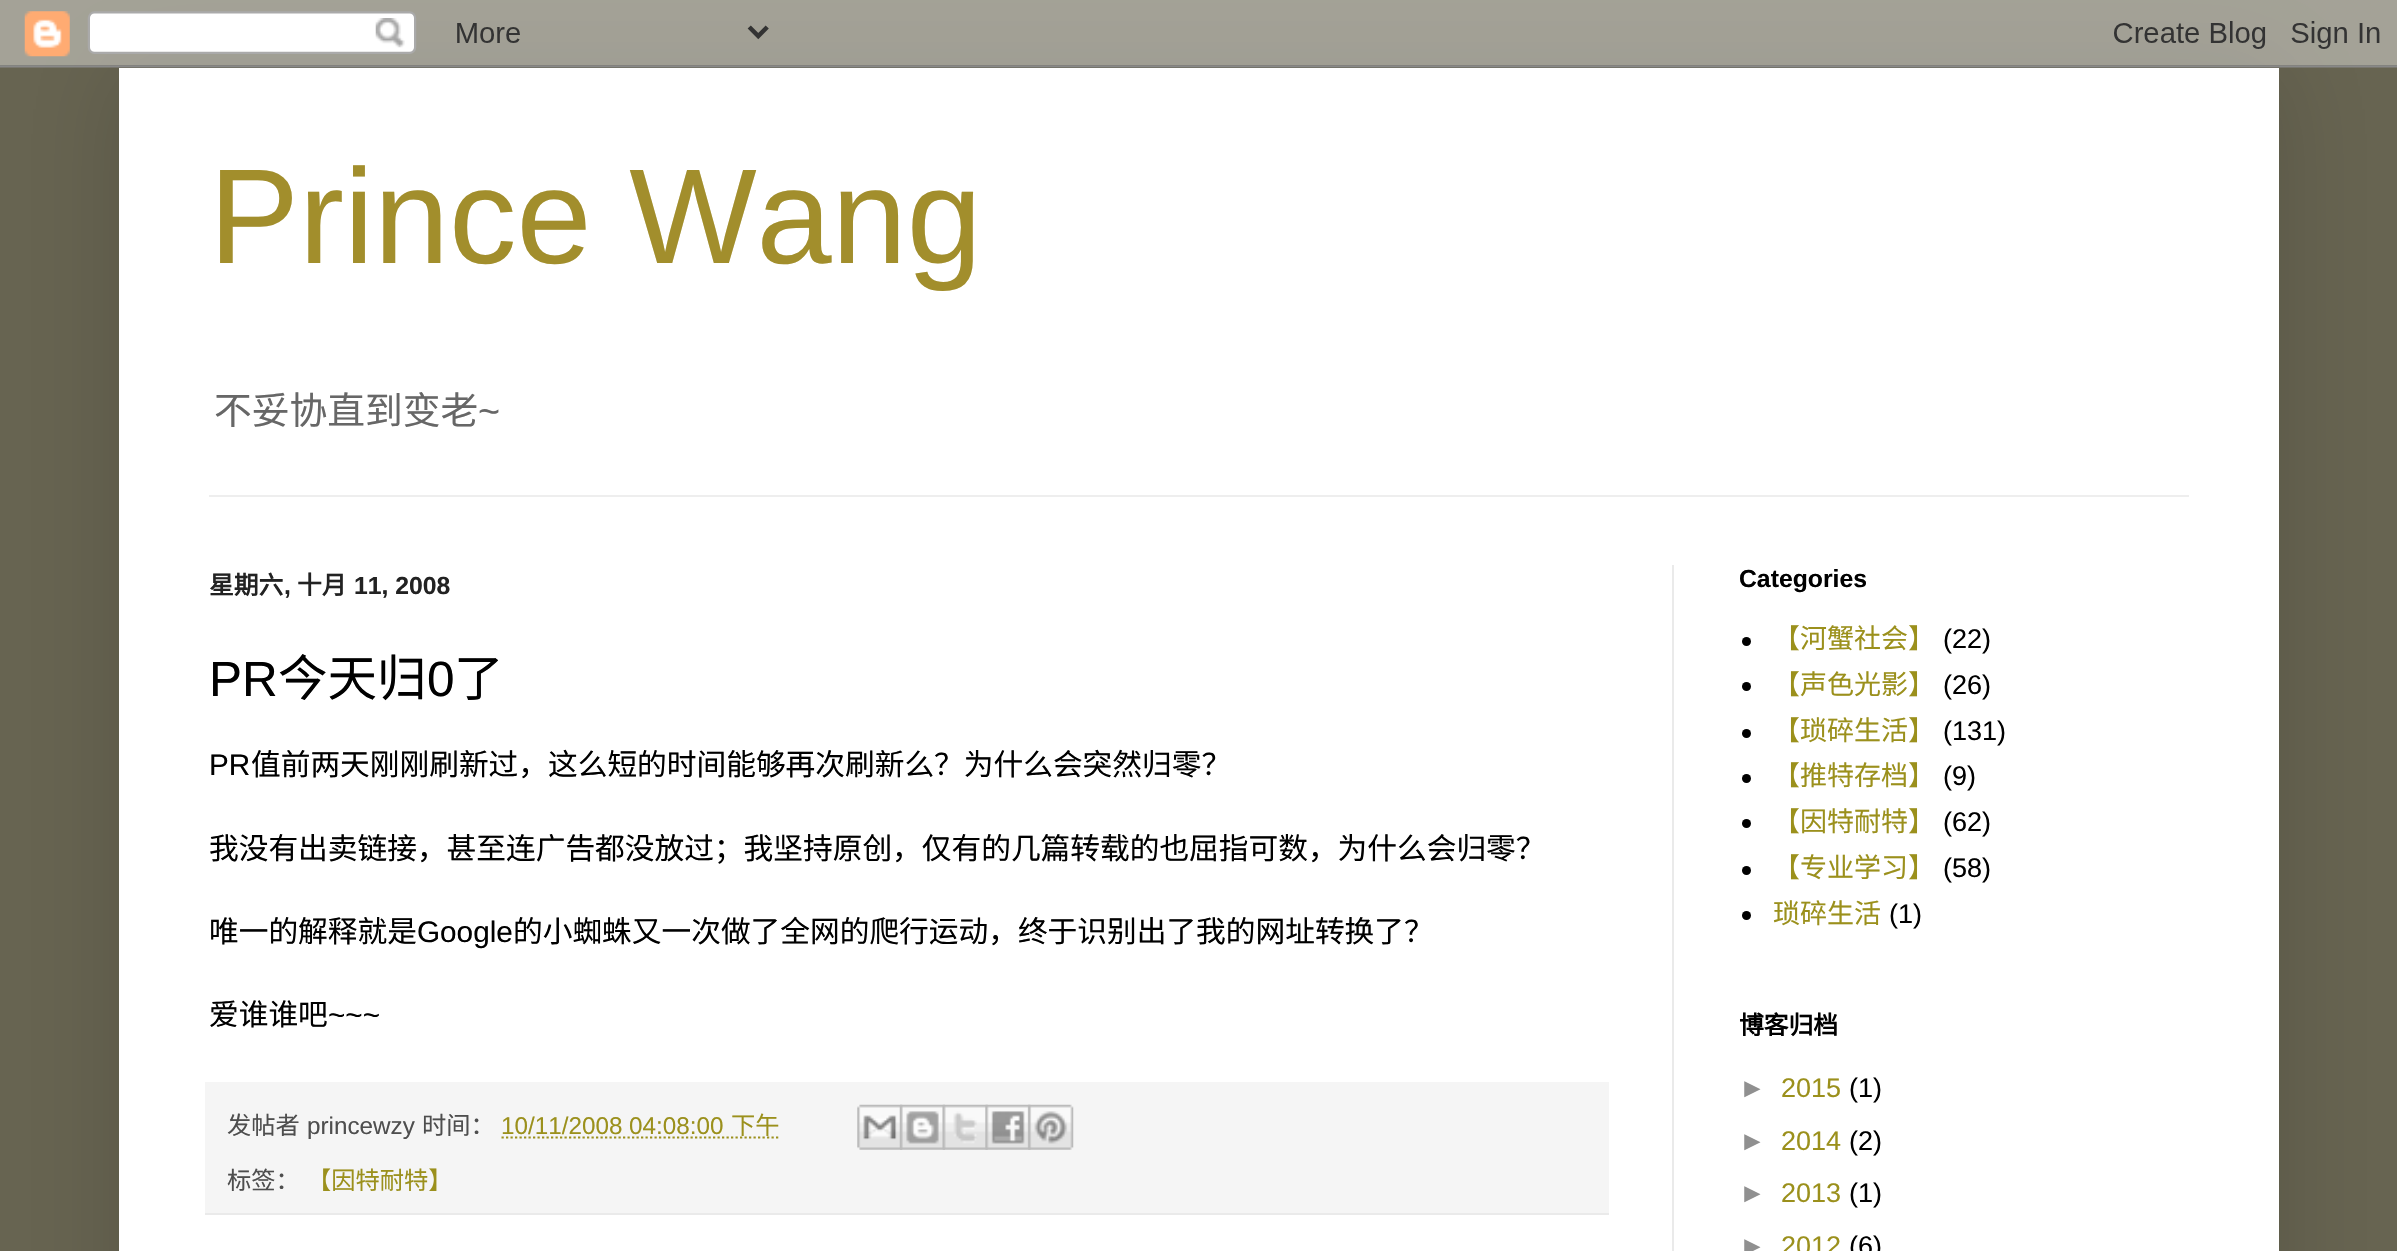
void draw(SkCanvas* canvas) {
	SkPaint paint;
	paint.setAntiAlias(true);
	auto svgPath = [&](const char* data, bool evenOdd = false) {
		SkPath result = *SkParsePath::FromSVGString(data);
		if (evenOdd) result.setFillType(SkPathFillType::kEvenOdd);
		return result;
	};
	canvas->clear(0xff676451);
	paint.setColor(0x26000000);
	paint.setMaskFilter(SkMaskFilter::MakeBlur(kNormal_SkBlurStyle, 45));
	canvas->drawRect(SkRect::MakeXYWH(119, 68, 2160, 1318), paint);
	paint.setMaskFilter(nullptr);
	canvas->drawImageRect(SkImages::DeferredFromEncodedData(SkData::MakeFromFileName("img1.png")), SkRect::MakeXYWH(0, 0, 2397, 68), SkSamplingOptions());
	paint.setColor(0xffffffff);
	canvas->drawRect(SkRect::MakeXYWH(119, 68, 2160, 1183), paint);
	SkFont f1(fontMgr->matchFamilyStyle("Liberation Sans", SkFontStyle::Normal()), 135);
	f1.setSubpixel(true);
	paint.setColor(0xffa28e2c);
	canvas->drawString("Prince Wang", 209, 263, f1, paint);
	SkFont f2(fontMgr->matchFamilyStyle("Noto Sans CJK SC", SkFontStyle::Normal()), 37.75);
	f2.setSubpixel(true);
	paint.setColor(0xff676767);
	canvas->drawString("不妥协直到变老", 214, 424, f2, paint);
	SkFont f3(fontMgr->matchFamilyStyle("Liberation Sans", SkFontStyle::Normal()), 37.75);
	f3.setSubpixel(true);
	canvas->drawString("~", 478, 424, f3, paint);
	paint.setColor(0xffeeeeee);
	canvas->drawRect(SkRect::MakeXYWH(209, 495, 1980, 2), paint);
	paint.setColor(0xffeaeaea);
	canvas->drawRect(SkRect::MakeXYWH(1672, 565, 2, 686), paint);
	SkFont f4(fontMgr->matchFamilyStyle("Noto Sans CJK SC", SkFontStyle::Bold()), 24.75);
	f4.setSubpixel(true);
	paint.setColor(0xff222222);
	canvas->drawString("星期六", 209, 594, f4, paint);
	SkFont f5(fontMgr->matchFamilyStyle("Liberation Sans", SkFontStyle::Bold()), 24.75);
	f5.setSubpixel(true);
	canvas->drawString(",", 284, 594, f5, paint);
	canvas->drawString("十月", 297, 594, f4, paint);
	canvas->drawString("11, 2008", 354, 594, f5, paint);
	SkFont f6(fontMgr->matchFamilyStyle("Liberation Sans", SkFontStyle::Normal()), 49.5);
	f6.setSubpixel(true);
	paint.setColor(0xff000000);
	canvas->drawString("PR", 209, 696, f6, paint);
	SkFont f7(fontMgr->matchFamilyStyle("Noto Sans CJK SC", SkFontStyle::Normal()), 49.5);
	f7.setSubpixel(true);
	canvas->drawString("今天归", 278, 696, f7, paint);
	canvas->drawString("0", 427, 696, f6, paint);
	canvas->drawString("了", 454, 696, f7, paint);
	SkFont f8(fontMgr->matchFamilyStyle("Liberation Sans", SkFontStyle::Normal()), 29.7);
	f8.setSubpixel(true);
	canvas->drawString("PR", 209, 775, f8, paint);
	SkFont f9(fontMgr->matchFamilyStyle("Noto Sans CJK SC", SkFontStyle::Normal()), 29.7);
	f9.setSubpixel(true);
	canvas->drawString("值前两天刚刚刷新过，这么短的时间能够再次刷新么？为什么会突然归零？", 251, 775, f9, paint);
	canvas->drawString("我没有出卖链接，甚至连广告都没放过；我坚持原创，仅有的几篇转载的也屈指可数，为什么会归零？", 209, 859, f9, paint);
	canvas->drawString("唯一的解释就是", 209, 942, f9, paint);
	canvas->drawString("Google", 417, 942, f8, paint);
	canvas->drawString("的小蜘蛛又一次做了全网的爬行运动，终于识别出了我的网址转换了？", 513, 942, f9, paint);
	canvas->drawString("爱谁谁吧", 209, 1025, f9, paint);
	canvas->drawString("~~~", 328, 1025, f8, paint);
	paint.setColor(0xfff5f5f5);
	canvas->drawRect(SkRect::MakeXYWH(205, 1082, 1404, 131), paint);
	paint.setColor(0xffeaeaea);
	canvas->drawRect(SkRect::MakeXYWH(205, 1213, 1404, 2), paint);
	SkFont f10(fontMgr->matchFamilyStyle("Noto Sans CJK SC", SkFontStyle::Normal()), 24.25);
	f10.setSubpixel(true);
	paint.setColor(0xff4e4e4e);
	canvas->drawString("发帖者", 227, 1134, f10, paint);
	SkFont f11(fontMgr->matchFamilyStyle("Liberation Sans", SkFontStyle::Normal()), 24.25);
	f11.setSubpixel(true);
	canvas->drawString("princewzy", 307, 1134, f11, paint);
	canvas->drawString("时间：", 422, 1134, f10, paint);
	paint.setColor(0xff9b901c);
	canvas->drawString("10/11/2008 04:08:00", 501, 1134, f11, paint);
	paint.setStroke(true);
	paint.setStrokeWidth(2.2);
	paint.setPathEffect(SkDashPathEffect::Make({{2.25f, 2.25f}}, 0));
	canvas->drawPath(svgPath("M501.5 1137.5H779.5"), paint);
	paint.setPathEffect(nullptr);
	paint.setStroke(false);
	canvas->drawString("下午", 731, 1134, f10, paint);
	canvas->drawImageRect(SkImages::DeferredFromEncodedData(SkData::MakeFromFileName("img2.png")), SkRect::MakeXYWH(857, 1104, 46, 46), SkSamplingOptions());
	canvas->drawImageRect(SkImages::DeferredFromEncodedData(SkData::MakeFromFileName("img3.png")), SkRect::MakeXYWH(900, 1104, 45, 46), SkSamplingOptions());
	canvas->drawImageRect(SkImages::DeferredFromEncodedData(SkData::MakeFromFileName("img4.png")), SkRect::MakeXYWH(942, 1104, 46, 46), SkSamplingOptions());
	canvas->drawImageRect(SkImages::DeferredFromEncodedData(SkData::MakeFromFileName("img5.png")), SkRect::MakeXYWH(985, 1104, 46, 46), SkSamplingOptions());
	canvas->drawImageRect(SkImages::DeferredFromEncodedData(SkData::MakeFromFileName("img6.png")), SkRect::MakeXYWH(1028, 1104, 46, 46), SkSamplingOptions());
	paint.setColor(0xff4e4e4e);
	canvas->drawString("标签：", 227, 1189, f10, paint);
	paint.setColor(0xff9b901c);
	canvas->drawString("【因特耐特】", 307, 1189, f10, paint);
	paint.setColor(0xff000000);
	canvas->drawString("Categories", 1739, 587, f5, paint);
	canvas->drawCircle(1746.5, 641.5, 4.5, paint);
	SkFont f12(fontMgr->matchFamilyStyle("Noto Sans CJK SC", SkFontStyle::Normal()), 27);
	f12.setSubpixel(true);
	paint.setColor(0xff9b901c);
	canvas->drawString("【河蟹社会】", 1773, 648, f12, paint);
	SkFont f13(fontMgr->matchFamilyStyle("Liberation Sans", SkFontStyle::Normal()), 27);
	f13.setSubpixel(true);
	paint.setColor(0xff000000);
	canvas->drawString("(22)", 1943, 648, f13, paint);
	canvas->drawCircle(1746.5, 686.5, 4.5, paint);
	paint.setColor(0xff9b901c);
	canvas->drawString("【声色光影】", 1773, 694, f12, paint);
	paint.setColor(0xff000000);
	canvas->drawString("(26)", 1943, 694, f13, paint);
	canvas->drawCircle(1746.5, 733.5, 4.5, paint);
	paint.setColor(0xff9b901c);
	canvas->drawString("【琐碎生活】", 1773, 740, f12, paint);
	paint.setColor(0xff000000);
	canvas->drawString("(131)", 1943, 740, f13, paint);
	canvas->drawCircle(1746.5, 778.5, 4.5, paint);
	paint.setColor(0xff9b901c);
	canvas->drawString("【推特存档】", 1773, 785, f12, paint);
	paint.setColor(0xff000000);
	canvas->drawString("(9)", 1943, 785, f13, paint);
	canvas->drawCircle(1746.5, 823.5, 4.5, paint);
	paint.setColor(0xff9b901c);
	canvas->drawString("【因特耐特】", 1773, 831, f12, paint);
	paint.setColor(0xff000000);
	canvas->drawString("(62)", 1943, 831, f13, paint);
	canvas->drawCircle(1746.5, 870.5, 4.5, paint);
	paint.setColor(0xff9b901c);
	canvas->drawString("【专业学习】", 1773, 877, f12, paint);
	paint.setColor(0xff000000);
	canvas->drawString("(58)", 1943, 877, f13, paint);
	canvas->drawCircle(1746.5, 915.5, 4.5, paint);
	paint.setColor(0xff9b901c);
	canvas->drawString("琐碎生活", 1773, 923, f12, paint);
	paint.setColor(0xff000000);
	canvas->drawString("(1)", 1889, 923, f13, paint);
	canvas->drawString("博客归档", 1739, 1034, f4, paint);
	paint.setColor(0xff909090);
	canvas->drawString("►", 1739, 1097, f13, paint);
	paint.setColor(0xff9b901c);
	canvas->drawString("2015", 1781, 1097, f13, paint);
	paint.setColor(0xff000000);
	canvas->drawString("(1)", 1849, 1097, f13, paint);
	paint.setColor(0xff909090);
	canvas->drawString("►", 1739, 1150, f13, paint);
	paint.setColor(0xff9b901c);
	canvas->drawString("2014", 1781, 1150, f13, paint);
	paint.setColor(0xff000000);
	canvas->drawString("(2)", 1849, 1150, f13, paint);
	paint.setColor(0xff909090);
	canvas->drawString("►", 1739, 1202, f13, paint);
	paint.setColor(0xff9b901c);
	canvas->drawString("2013", 1781, 1202, f13, paint);
	paint.setColor(0xff000000);
	canvas->drawString("(1)", 1849, 1202, f13, paint);
	paint.setColor(0xff909090);
	canvas->drawString("►", 1739, 1255, f13, paint);
	paint.setColor(0xff9b901c);
	canvas->drawString("2012", 1781, 1255, f13, paint);
	paint.setColor(0xff000000);
	canvas->drawString("(6)", 1849, 1255, f13, paint);
}
